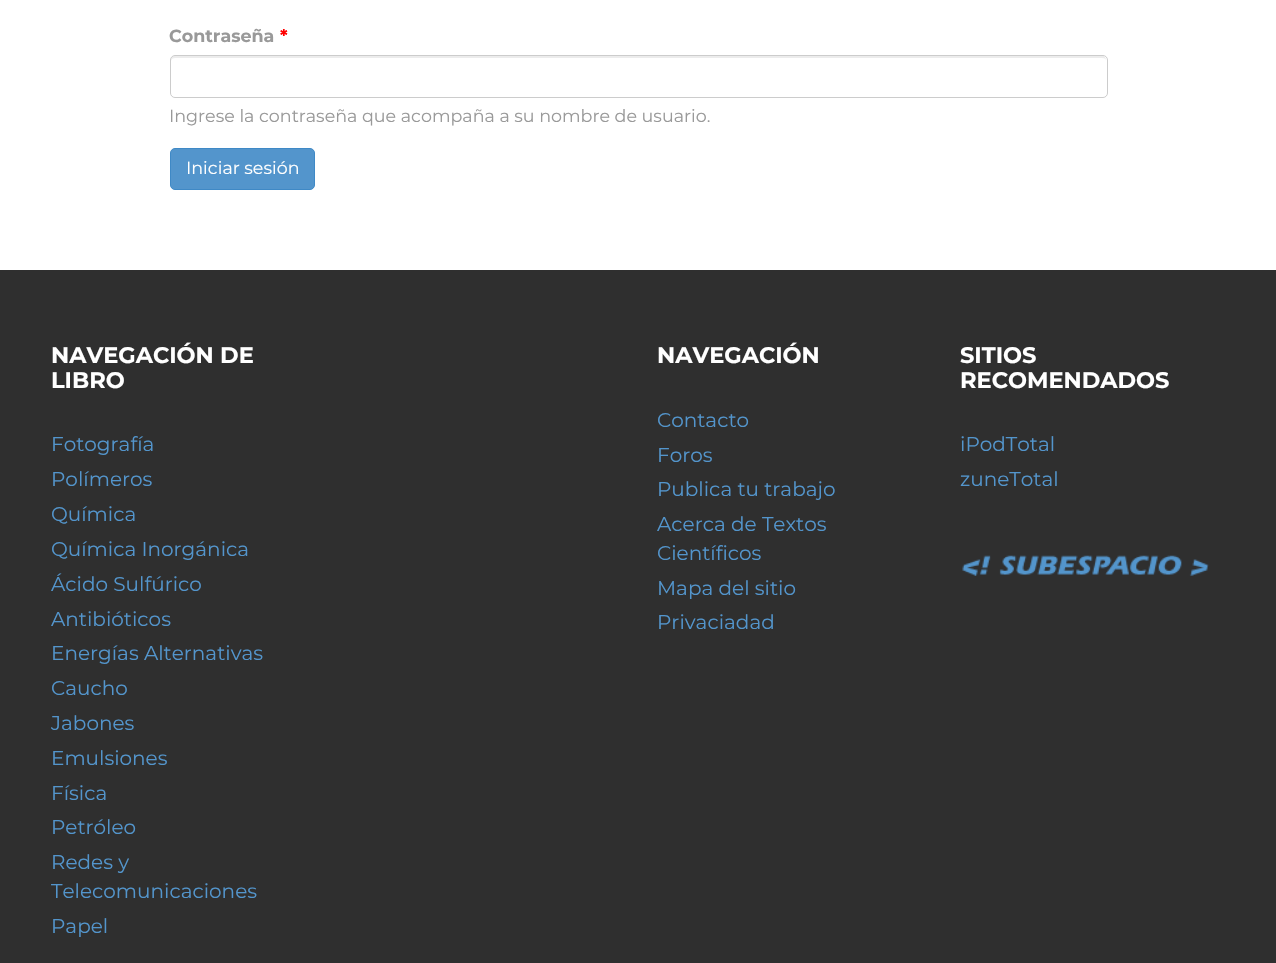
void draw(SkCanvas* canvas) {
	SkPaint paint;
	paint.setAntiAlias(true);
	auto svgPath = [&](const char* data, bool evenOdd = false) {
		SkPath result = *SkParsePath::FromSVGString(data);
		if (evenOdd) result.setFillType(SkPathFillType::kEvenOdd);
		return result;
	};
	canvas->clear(0xffffffff);
	SkFont f1(fontMgr->matchFamilyStyle("Montserrat", SkFontStyle::Bold()), 17.5);
	f1.setSubpixel(true);
	paint.setColor(0xff999999);
	canvas->drawString("Contraseña", 169, 42, f1, paint);
	paint.setColor(0xffff0000);
	canvas->drawString("*", 280, 42, f1, paint);
	paint.setColor(0xffececec);
	canvas->drawPath(svgPath("M175 58H1102C1105 58 1106 59 1106 61C1106 58 1105 56 1102 56H175C172 56 171 58 171 61C171 59 173 58 175 58Z"), paint);
	paint.setStroke(true);
	paint.setStrokeWidth(1);
	paint.setColor(0xffcccccc);
	canvas->drawRoundRect(SkRect::MakeXYWH(170.5, 55.5, 937, 42), 4.5, 4.5, paint);
	SkFont f2(fontMgr->matchFamilyStyle("Montserrat", SkFontStyle::Normal()), 17.5);
	f2.setSubpixel(true);
	paint.setStroke(false);
	paint.setColor(0xff999999);
	canvas->drawString("Ingrese la contraseña que acompaña a su nombre de usuario.", 169, 122, f2, paint);
	paint.setColor(0xff5395cc);
	canvas->drawRoundRect(SkRect::MakeXYWH(170.5, 148.5, 144, 41), 4.5, 4.5, paint);
	paint.setStroke(true);
	paint.setColor(0xff3f89c6);
	canvas->drawRoundRect(SkRect::MakeXYWH(170.5, 148.5, 144, 41), 4.5, 4.5, paint);
	paint.setStroke(false);
	paint.setColor(0xffffffff);
	canvas->drawString("Iniciar sesión", 186, 174, f2, paint);
	paint.setColor(0xff2f2f2f);
	canvas->drawRect(SkRect::MakeXYWH(0, 270, 1276, 693), paint);
	SkFont f3(fontMgr->matchFamilyStyle("Montserrat", SkFontStyle::Bold()), 22.5);
	f3.setSubpixel(true);
	paint.setColor(0xffffffff);
	canvas->drawString("NAVEGACIÓN DE", 51, 363, f3, paint);
	canvas->drawString("LIBRO", 51, 388, f3, paint);
	SkFont f4(fontMgr->matchFamilyStyle("Montserrat", SkFontStyle::Normal()), 20);
	f4.setSubpixel(true);
	paint.setColor(0xff5395cc);
	canvas->drawString("Fotografía", 51, 451, f4, paint);
	canvas->drawString("Polímeros", 51, 486, f4, paint);
	canvas->drawString("Química", 51, 521, f4, paint);
	canvas->drawString("Química Inorgánica", 51, 556, f4, paint);
	canvas->drawString("Ácido Sulfúrico", 51, 591, f4, paint);
	canvas->drawString("Antibióticos", 51, 626, f4, paint);
	canvas->drawString("Energías Alternativas", 51, 660, f4, paint);
	canvas->drawString("Caucho", 51, 695, f4, paint);
	canvas->drawString("Jabones", 51, 730, f4, paint);
	canvas->drawString("Emulsiones", 51, 765, f4, paint);
	canvas->drawString("Física", 51, 800, f4, paint);
	canvas->drawString("Petróleo", 51, 834, f4, paint);
	canvas->drawString("Redes y", 51, 869, f4, paint);
	canvas->drawString("Telecomunicaciones", 51, 898, f4, paint);
	canvas->drawString("Papel", 51, 933, f4, paint);
	paint.setColor(0xffffffff);
	canvas->drawString("NAVEGACIÓN", 657, 363, f3, paint);
	paint.setColor(0xff5395cc);
	canvas->drawString("Contacto", 657, 427, f4, paint);
	canvas->drawString("Foros", 657, 462, f4, paint);
	canvas->drawString("Publica tu trabajo", 657, 496, f4, paint);
	canvas->drawString("Acerca de Textos", 657, 531, f4, paint);
	canvas->drawString("Científicos", 657, 560, f4, paint);
	canvas->drawString("Mapa del sitio", 657, 595, f4, paint);
	canvas->drawString("Privaciadad", 657, 629, f4, paint);
	paint.setColor(0xffffffff);
	canvas->drawString("SITIOS", 960, 363, f3, paint);
	canvas->drawString("RECOMENDADOS", 960, 388, f3, paint);
	paint.setColor(0xff5395cc);
	canvas->drawString("iPodTotal", 960, 451, f4, paint);
	canvas->drawString("zuneTotal", 960, 486, f4, paint);
	canvas->drawImageRect(SkImages::DeferredFromEncodedData(SkData::MakeFromFileName("img1.png")), SkRect::MakeXYWH(962, 555, 247, 21), SkSamplingOptions());
}
